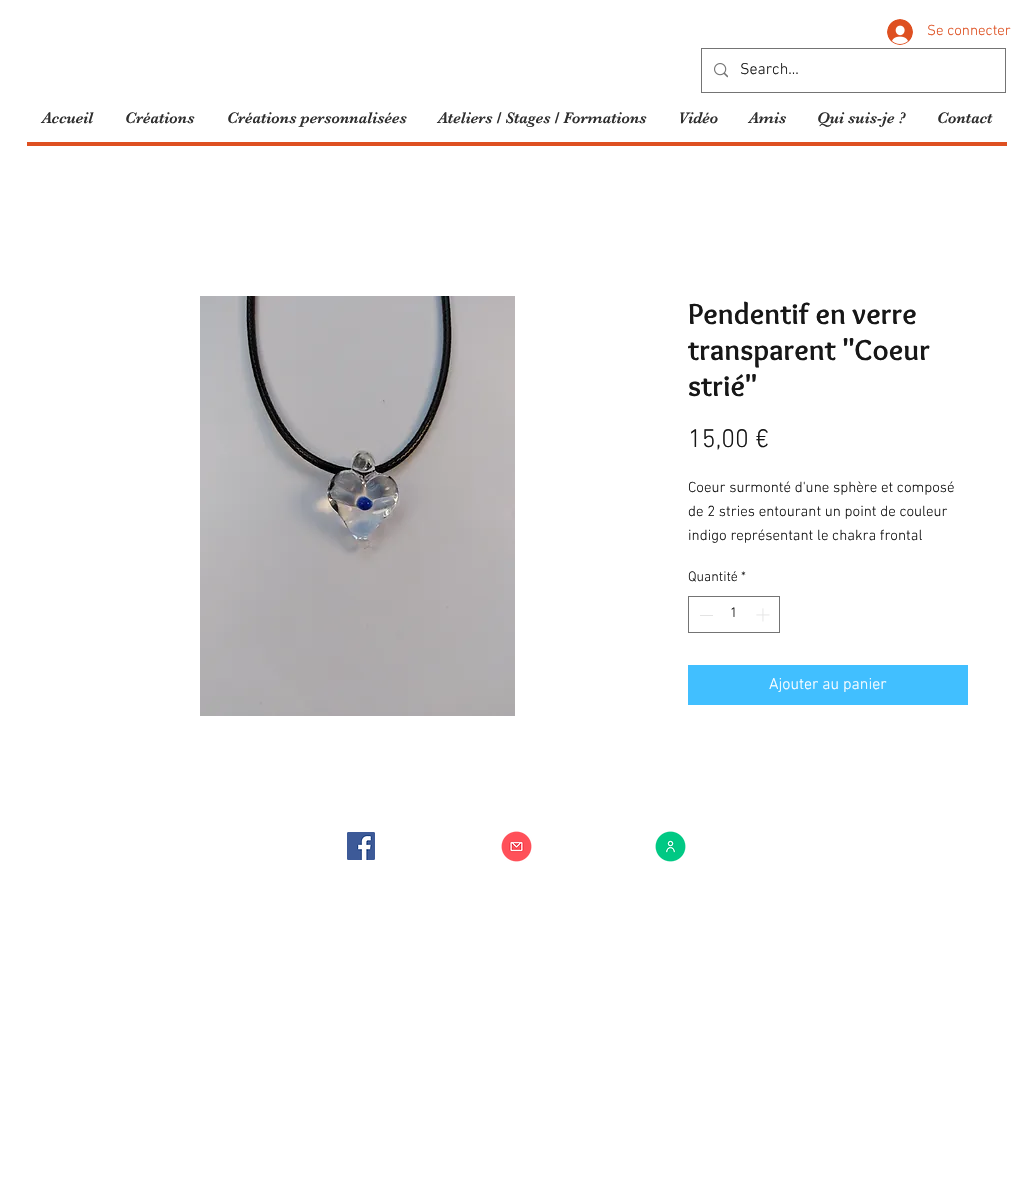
void draw(SkCanvas* canvas) {
	SkPaint paint;
	paint.setAntiAlias(true);
	canvas->clear(0xffffffff);
	canvas->drawImageRect(SkImages::DeferredFromEncodedData(SkData::MakeFromFileName("img1.png")), SkRect::MakeXYWH(887, 19, 26, 26), SkSamplingOptions());
	SkFont f1(fontMgr->matchFamilyStyle("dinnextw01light", SkFontStyle(300, SkFontStyle::kNormal_Width, SkFontStyle::kUpright_Slant)), 15);
	f1.setSubpixel(true);
	paint.setColor(0xffde5021);
	canvas->drawString("Se connecter", 927, 35, f1, paint);
	paint.setStroke(true);
	paint.setStrokeWidth(1);
	paint.setColor(0xff747474);
	canvas->drawRect(SkRect::MakeXYWH(701.5, 48.5, 304, 44), paint);
	canvas->drawImageRect(SkImages::DeferredFromEncodedData(SkData::MakeFromFileName("img2.png")), SkRect::MakeXYWH(714, 63, 14, 15), SkSamplingOptions());
	SkFont f2(fontMgr->matchFamilyStyle("dinnextw01light", SkFontStyle(300, SkFontStyle::kNormal_Width, SkFontStyle::kUpright_Slant)), 16);
	f2.setSubpixel(true);
	paint.setStroke(false);
	paint.setColor(0xff171717);
	canvas->drawString("Search...", 740, 74, f2, paint);
	paint.setColor(0xffde5021);
	canvas->drawRect(SkRect::MakeXYWH(27, 142, 980, 4), paint);
	SkFont f3(fontMgr->matchFamilyStyle("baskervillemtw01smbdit", SkFontStyle::Normal()), 16);
	f3.setSubpixel(true);
	paint.setColor(0xff2e2e2e);
	canvas->drawString("Accueil", 42, 123, f3, paint);
	canvas->drawString("Créations", 125, 123, f3, paint);
	canvas->drawString("Créations personnalisées", 227, 123, f3, paint);
	canvas->drawString("Ateliers / Stages / Formations", 438, 123, f3, paint);
	canvas->drawString("Vidéo", 678, 123, f3, paint);
	canvas->drawString("Amis", 749, 123, f3, paint);
	canvas->drawString("Qui suis-je ?", 817, 123, f3, paint);
	canvas->drawString("Contact", 937, 123, f3, paint);
	canvas->drawImageRect(SkImages::DeferredFromEncodedData(SkData::MakeFromFileName("img3.png")), SkRect::MakeXYWH(200, 296, 315, 420), SkSamplingOptions());
	SkFont f4(fontMgr->matchFamilyStyle("Overlock", SkFontStyle::Bold()), 30);
	f4.setSubpixel(true);
	paint.setColor(0xff171717);
	canvas->drawString("Pendentif en verre", 688, 324, f4, paint);
	canvas->drawString("transparent \"Coeur", 688, 360, f4, paint);
	canvas->drawString("strié\"", 688, 396, f4, paint);
	SkFont f5(fontMgr->matchFamilyStyle("dinnextw01light", SkFontStyle(300, SkFontStyle::kNormal_Width, SkFontStyle::kUpright_Slant)), 26);
	f5.setSubpixel(true);
	canvas->drawString("15,00 €", 688, 447, f5, paint);
	canvas->drawString("Coeur surmonté d'une sphère et composé", 688, 492, f1, paint);
	canvas->drawString("de 2 stries entourant un point de couleur", 688, 516, f1, paint);
	canvas->drawString("indigo représentant le chakra frontal", 688, 540, f1, paint);
	SkFont f6(fontMgr->matchFamilyStyle("dinnextw01light", SkFontStyle(300, SkFontStyle::kNormal_Width, SkFontStyle::kUpright_Slant)), 14);
	f6.setSubpixel(true);
	canvas->drawString("Quantité", 688, 581, f6, paint);
	canvas->drawString("*", 741, 581, f6, paint);
	paint.setStroke(true);
	paint.setColor(0xff747474);
	canvas->drawRect(SkRect::MakeXYWH(688.5, 596.5, 91, 36), paint);
	paint.setStroke(false);
	paint.setColor(0xffe3e3e3);
	canvas->drawRect(SkRect::MakeXYWH(700, 615, 13, 1), paint);
	paint.setColor(0xff171717);
	canvas->drawString("1", 730, 617, f6, paint);
	canvas->drawImageRect(SkImages::DeferredFromEncodedData(SkData::MakeFromFileName("img4.png")), SkRect::MakeXYWH(756, 608, 14, 14), SkSamplingOptions());
	paint.setColor(0xff41bfff);
	canvas->drawRect(SkRect::MakeXYWH(688, 665, 280, 40), paint);
	paint.setColor(0xffffffff);
	canvas->drawString("Ajouter au panier", 769, 689, f2, paint);
	canvas->drawImageRect(SkImages::DeferredFromEncodedData(SkData::MakeFromFileName("img5.png")), SkRect::MakeXYWH(347, 832, 28, 28), SkSamplingOptions());
	canvas->drawImageRect(SkImages::DeferredFromEncodedData(SkData::MakeFromFileName("img6.png")), SkRect::MakeXYWH(501, 831, 31, 31), SkSamplingOptions());
	canvas->drawImageRect(SkImages::DeferredFromEncodedData(SkData::MakeFromFileName("img7.png")), SkRect::MakeXYWH(655, 831, 31, 31), SkSamplingOptions());
}
